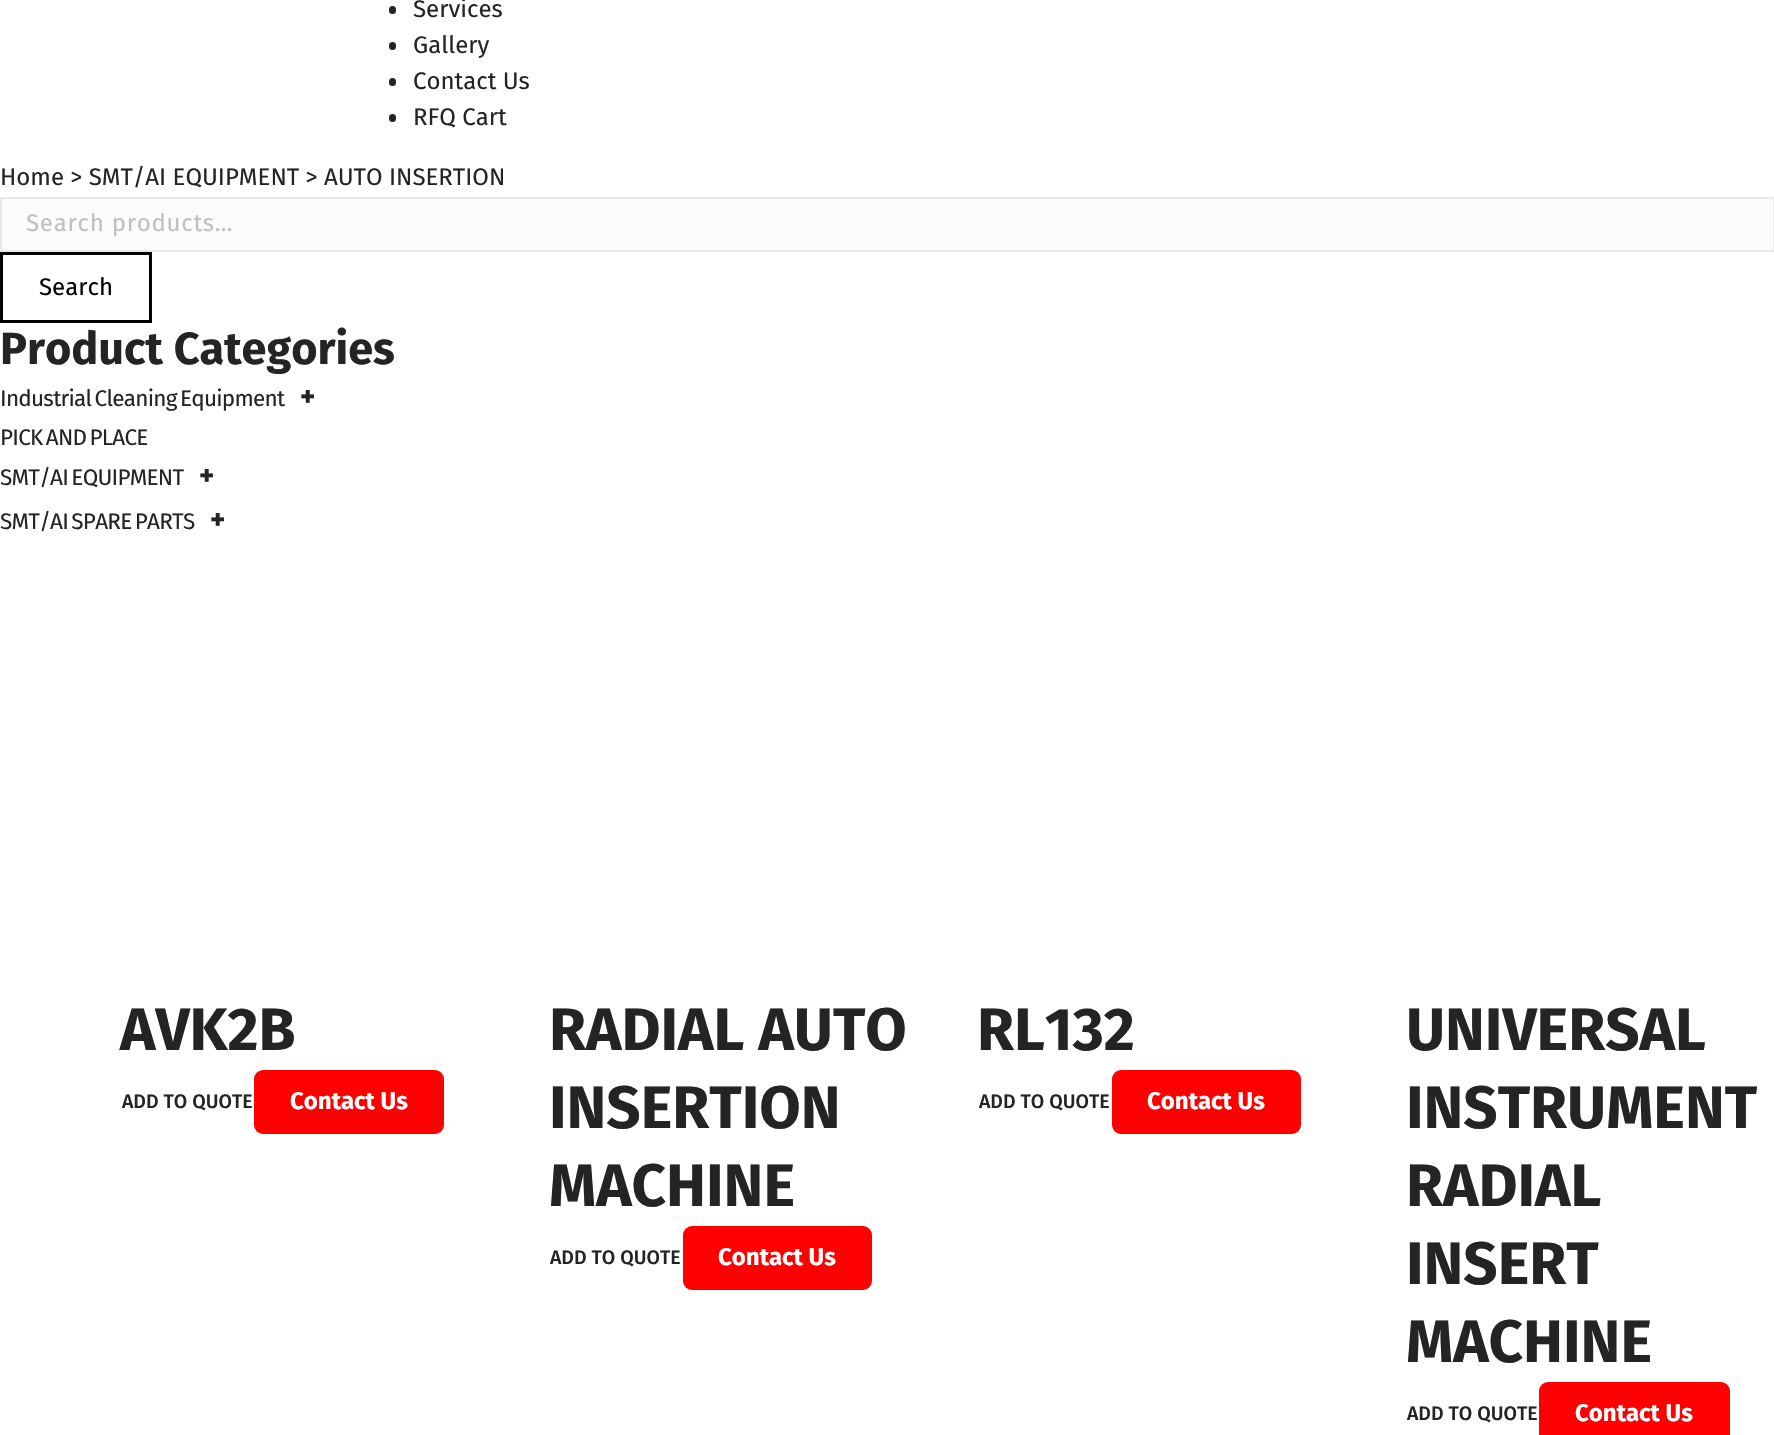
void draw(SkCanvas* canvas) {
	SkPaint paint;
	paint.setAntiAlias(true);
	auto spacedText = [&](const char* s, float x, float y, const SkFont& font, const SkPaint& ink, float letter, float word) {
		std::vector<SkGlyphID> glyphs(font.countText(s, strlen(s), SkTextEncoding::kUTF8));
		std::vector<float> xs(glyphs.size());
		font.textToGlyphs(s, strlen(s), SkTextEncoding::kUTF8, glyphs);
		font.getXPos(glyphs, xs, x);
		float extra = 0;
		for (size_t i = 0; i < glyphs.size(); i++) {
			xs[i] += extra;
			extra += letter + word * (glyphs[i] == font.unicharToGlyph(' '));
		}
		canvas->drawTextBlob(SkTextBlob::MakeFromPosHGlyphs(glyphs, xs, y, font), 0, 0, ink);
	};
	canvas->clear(0xffffffff);
	paint.setColor(0xff242424);
	canvas->drawRoundRect(SkRect::MakeXYWH(389, 6, 7, 8), 3.5, 3.5, paint);
	SkFont f1(fontMgr->matchFamilyStyle("Fira Sans", SkFontStyle::Normal()), 24);
	f1.setSubpixel(true);
	canvas->drawString("Services", 413, 17, f1, paint);
	canvas->drawRoundRect(SkRect::MakeXYWH(389, 42, 7, 8), 3.5, 3.5, paint);
	canvas->drawString("Gallery", 413, 53, f1, paint);
	canvas->drawRoundRect(SkRect::MakeXYWH(389, 78, 7, 8), 3.5, 3.5, paint);
	canvas->drawString("Contact Us", 413, 89, f1, paint);
	canvas->drawRoundRect(SkRect::MakeXYWH(389, 114, 7, 8), 3.5, 3.5, paint);
	canvas->drawString("RFQ Cart", 413, 125, f1, paint);
	canvas->drawString("Home > SMT/AI EQUIPMENT > AUTO INSERTION", 0, 185, f1, paint);
	paint.setColor(0xfffbfbfb);
	canvas->drawRect(SkRect::MakeXYWH(1, 198, 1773, 53), paint);
	paint.setStroke(true);
	paint.setStrokeWidth(2);
	paint.setColor(0xffe9e9ea);
	canvas->drawRect(SkRect::MakeXYWH(1, 198, 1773, 53), paint);
	paint.setStroke(false);
	paint.setColor(0xffc0c0c0);
	spacedText("Search products…", 26, 231, f1, paint, 0.75, 0);
	paint.setStroke(true);
	paint.setStrokeWidth(3);
	paint.setColor(0xff000000);
	canvas->drawRect(SkRect::MakeXYWH(1.5, 253.5, 149, 68), paint);
	paint.setStroke(false);
	canvas->drawString("Search", 39, 295, f1, paint);
	SkFont f2(fontMgr->matchFamilyStyle("Fira Sans", SkFontStyle::Bold()), 45);
	f2.setSubpixel(true);
	paint.setColor(0xff242424);
	canvas->drawString("Product Categories", 0, 364, f2, paint);
	SkFont f3(fontMgr->matchFamilyStyle("Fira Sans", SkFontStyle::Normal()), 22.5);
	f3.setSubpixel(true);
	spacedText("Industrial Cleaning Equipment", 0, 406, f3, paint, -0.75, -2);
	SkFont f4(fontMgr->matchFamilyStyle("Fira Sans", SkFontStyle::Bold()), 29);
	f4.setSubpixel(true);
	canvas->drawString("+", 300, 406, f4, paint);
	spacedText("PICK AND PLACE", 0, 445, f3, paint, -0.75, -2);
	spacedText("SMT/AI EQUIPMENT", 0, 485, f3, paint, -0.75, -2);
	canvas->drawString("+", 199, 485, f4, paint);
	spacedText("SMT/AI SPARE PARTS", 0, 529, f3, paint, -0.75, -2);
	canvas->drawString("+", 210, 529, f4, paint);
	SkFont f5(fontMgr->matchFamilyStyle("Fira Sans", SkFontStyle::Bold()), 60);
	f5.setSubpixel(true);
	canvas->drawString("AVK2B", 120, 1050, f5, paint);
	SkFont f6(fontMgr->matchFamilyStyle("Fira Sans", SkFontStyle(500, SkFontStyle::kNormal_Width, SkFontStyle::kUpright_Slant)), 19.5);
	f6.setSubpixel(true);
	canvas->drawString("ADD TO QUOTE", 122, 1108, f6, paint);
	paint.setColor(0xffff0000);
	canvas->drawRoundRect(SkRect::MakeXYWH(254, 1070, 190, 64), 9, 9, paint);
	SkFont f7(fontMgr->matchFamilyStyle("Fira Sans", SkFontStyle::Bold()), 24);
	f7.setSubpixel(true);
	paint.setColor(0xffffffff);
	canvas->drawString("Contact Us", 290, 1109, f7, paint);
	paint.setColor(0xff242424);
	canvas->drawString("RADIAL AUTO", 549, 1050, f5, paint);
	canvas->drawString("INSERTION", 549, 1128, f5, paint);
	canvas->drawString("MACHINE", 549, 1206, f5, paint);
	canvas->drawString("ADD TO QUOTE", 550, 1264, f6, paint);
	paint.setColor(0xffff0000);
	canvas->drawRoundRect(SkRect::MakeXYWH(683, 1226, 189, 64), 9, 9, paint);
	paint.setColor(0xffffffff);
	canvas->drawString("Contact Us", 718, 1265, f7, paint);
	paint.setColor(0xff242424);
	canvas->drawString("RL132", 977, 1050, f5, paint);
	canvas->drawString("ADD TO QUOTE", 979, 1108, f6, paint);
	paint.setColor(0xffff0000);
	canvas->drawRoundRect(SkRect::MakeXYWH(1112, 1070, 189, 64), 9, 9, paint);
	paint.setColor(0xffffffff);
	canvas->drawString("Contact Us", 1147, 1109, f7, paint);
	paint.setColor(0xff242424);
	canvas->drawString("UNIVERSAL", 1406, 1050, f5, paint);
	canvas->drawString("INSTRUMENT", 1406, 1128, f5, paint);
	canvas->drawString("RADIAL", 1406, 1206, f5, paint);
	canvas->drawString("INSERT", 1406, 1284, f5, paint);
	canvas->drawString("MACHINE", 1406, 1362, f5, paint);
	canvas->drawString("ADD TO QUOTE", 1407, 1420, f6, paint);
	paint.setColor(0xffff0000);
	canvas->drawRoundRect(SkRect::MakeXYWH(1539, 1382, 191, 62), 9, 9, paint);
	paint.setColor(0xffffffff);
	canvas->drawString("Contact Us", 1575, 1421, f7, paint);
}
